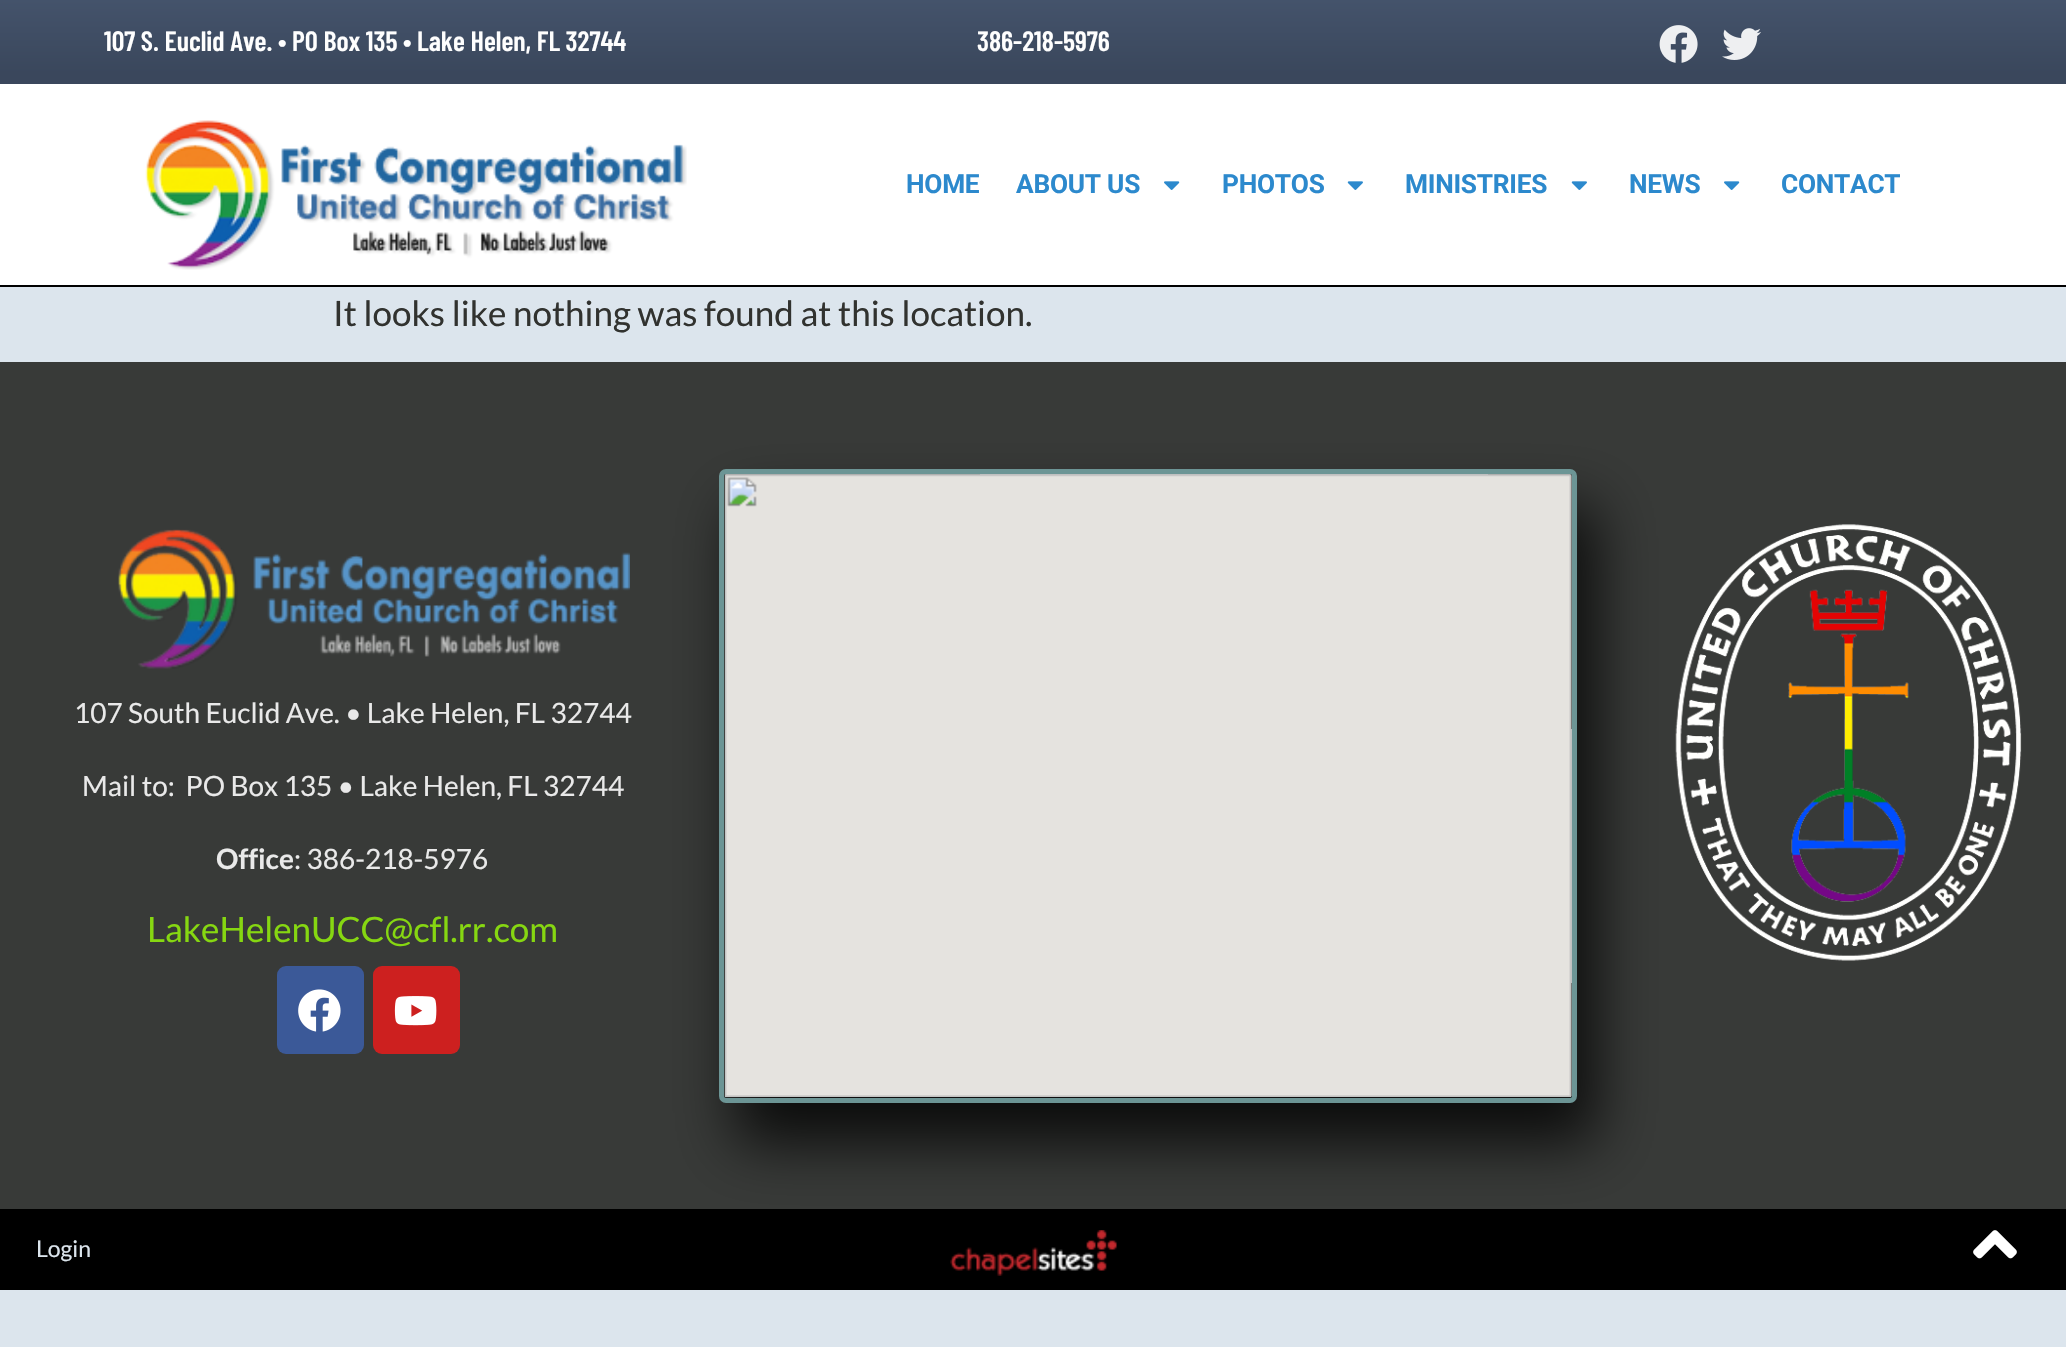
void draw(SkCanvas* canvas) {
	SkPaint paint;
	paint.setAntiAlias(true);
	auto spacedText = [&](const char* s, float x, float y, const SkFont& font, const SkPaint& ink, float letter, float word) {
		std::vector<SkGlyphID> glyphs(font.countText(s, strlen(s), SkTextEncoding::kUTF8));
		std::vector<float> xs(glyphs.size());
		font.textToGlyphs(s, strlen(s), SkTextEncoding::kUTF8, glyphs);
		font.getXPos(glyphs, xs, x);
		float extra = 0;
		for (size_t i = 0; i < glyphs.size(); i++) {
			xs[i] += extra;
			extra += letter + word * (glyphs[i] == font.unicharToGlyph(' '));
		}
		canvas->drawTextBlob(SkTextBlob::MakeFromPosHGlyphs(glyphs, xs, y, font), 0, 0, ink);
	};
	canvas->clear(0xffdce5ed);
	{
		const SkColor colors[] = {0xff44536b, 0xff3a475c};
		const float stops[] = {0, 0.87};
		const SkPoint ends[] = {{1033, 0}, {1033, 84}};
		paint.setShader(SkGradientShader::MakeLinear(ends, colors, stops, 2, SkTileMode::kClamp));
		paint.setAlpha(255);
	}
	canvas->drawRect(SkRect::MakeXYWH(0, 0, 2066, 84), paint);
	SkFont f1(fontMgr->matchFamilyStyle("Barlow Condensed", SkFontStyle(600, SkFontStyle::kNormal_Width, SkFontStyle::kUpright_Slant)), 28);
	f1.setSubpixel(true);
	paint.setShader(nullptr);
	paint.setColor(0xfffefefe);
	canvas->drawString("107 S. Euclid Ave. • PO Box 135 • Lake Helen, FL 32744", 104, 51, f1, paint);
	canvas->drawString("386-218-5976", 977, 51, f1, paint);
	canvas->drawImageRect(SkImages::DeferredFromEncodedData(SkData::MakeFromFileName("img1.png")), SkRect::MakeXYWH(1659, 25, 39, 38), SkSamplingOptions());
	canvas->drawImageRect(SkImages::DeferredFromEncodedData(SkData::MakeFromFileName("img2.png")), SkRect::MakeXYWH(1722, 28, 39, 32), SkSamplingOptions());
	paint.setColor(0xffffffff);
	canvas->drawRect(SkRect::MakeXYWH(0, 84, 2066, 201), paint);
	paint.setColor(0xff000000);
	canvas->drawRect(SkRect::MakeXYWH(0, 285, 2066, 2), paint);
	canvas->drawImageRect(SkImages::DeferredFromEncodedData(SkData::MakeFromFileName("img3.png")), SkRect::MakeXYWH(145, 120, 542, 150), SkSamplingOptions());
	SkFont f2(fontMgr->matchFamilyStyle("Roboto", SkFontStyle::Bold()), 26.25);
	f2.setSubpixel(true);
	paint.setColor(0xff2c89cd);
	spacedText("HOME", 906, 193, f2, paint, -0.25, 0);
	spacedText("ABOUT US", 1016, 193, f2, paint, -0.25, 0);
	canvas->drawImageRect(SkImages::DeferredFromEncodedData(SkData::MakeFromFileName("img4.png")), SkRect::MakeXYWH(1164, 181, 16, 9), SkSamplingOptions());
	spacedText("PHOTOS", 1222, 193, f2, paint, -0.25, 0);
	canvas->drawImageRect(SkImages::DeferredFromEncodedData(SkData::MakeFromFileName("img5.png")), SkRect::MakeXYWH(1347, 181, 16, 9), SkSamplingOptions());
	spacedText("MINISTRIES", 1405, 193, f2, paint, -0.25, 0);
	canvas->drawImageRect(SkImages::DeferredFromEncodedData(SkData::MakeFromFileName("img5.png")), SkRect::MakeXYWH(1571, 181, 16, 9), SkSamplingOptions());
	spacedText("NEWS", 1629, 193, f2, paint, -0.25, 0);
	canvas->drawImageRect(SkImages::DeferredFromEncodedData(SkData::MakeFromFileName("img4.png")), SkRect::MakeXYWH(1724, 181, 16, 9), SkSamplingOptions());
	spacedText("CONTACT", 1781, 193, f2, paint, -0.25, 0);
	SkFont f3(fontMgr->matchFamilyStyle("Lato", SkFontStyle::Normal()), 35);
	f3.setSubpixel(true);
	paint.setColor(0xff31322f);
	canvas->drawString("It looks like nothing was found at this location.", 333, 326, f3, paint);
	paint.setColor(0xff383a38);
	canvas->drawRect(SkRect::MakeXYWH(0, 362, 2066, 847), paint);
	canvas->drawImageRect(SkImages::DeferredFromEncodedData(SkData::MakeFromFileName("img6.png")), SkRect::MakeXYWH(118, 529, 512, 140), SkSamplingOptions());
	SkFont f4(fontMgr->matchFamilyStyle("Lato", SkFontStyle::Normal()), 28);
	f4.setSubpixel(true);
	paint.setColor(0xffe9e9e9);
	canvas->drawString("107 South Euclid Ave. • Lake Helen, FL 32744", 74, 723, f4, paint);
	canvas->drawString("Mail to:  PO Box 135 • Lake Helen, FL 32744", 82, 796, f4, paint);
	SkFont f5(fontMgr->matchFamilyStyle("Lato", SkFontStyle::Bold()), 28);
	f5.setSubpixel(true);
	canvas->drawString("Office", 216, 869, f5, paint);
	canvas->drawString(": 386-218-5976", 294, 869, f4, paint);
	paint.setColor(0xff86d711);
	canvas->drawString("LakeHelenUCC@cfl.rr.com", 147, 942, f3, paint);
	paint.setColor(0xff3b5998);
	canvas->drawRoundRect(SkRect::MakeXYWH(277, 966, 87, 88), 9, 9, paint);
	canvas->drawImageRect(SkImages::DeferredFromEncodedData(SkData::MakeFromFileName("img7.png")), SkRect::MakeXYWH(298, 989, 43, 43), SkSamplingOptions());
	paint.setColor(0xffcd201f);
	canvas->drawRoundRect(SkRect::MakeXYWH(373, 966, 87, 88), 9, 9, paint);
	canvas->drawImageRect(SkImages::DeferredFromEncodedData(SkData::MakeFromFileName("img8.png")), SkRect::MakeXYWH(394, 996, 43, 30), SkSamplingOptions());
	paint.setColor(0xcc000000);
	paint.setMaskFilter(SkMaskFilter::MakeBlur(kNormal_SkBlurStyle, 30));
	canvas->drawRoundRect(SkRect::MakeXYWH(735, 506, 861, 637), 9, 9, paint);
	paint.setMaskFilter(nullptr);
	paint.setStroke(true);
	paint.setStrokeWidth(5);
	paint.setColor(0xff6c9595);
	canvas->drawRoundRect(SkRect::MakeXYWH(721.5, 471.5, 853, 629), 4.5, 4.5, paint);
	canvas->drawImageRect(SkImages::DeferredFromEncodedData(SkData::MakeFromFileName("img9.png")), SkRect::MakeXYWH(724, 474, 848, 623), SkSamplingOptions());
	canvas->drawImageRect(SkImages::DeferredFromEncodedData(SkData::MakeFromFileName("img10.png")), SkRect::MakeXYWH(1675, 524, 347, 437), SkSamplingOptions());
	paint.setStroke(false);
	paint.setColor(0xff000000);
	canvas->drawRect(SkRect::MakeXYWH(0, 1209, 2066, 81), paint);
	SkFont f6(fontMgr->matchFamilyStyle("Lato", SkFontStyle::Normal()), 23);
	f6.setSubpixel(true);
	paint.setColor(0xffdbe4ec);
	canvas->drawString("Login", 36, 1257, f6, paint);
	canvas->drawImageRect(SkImages::DeferredFromEncodedData(SkData::MakeFromFileName("img11.png")), SkRect::MakeXYWH(950, 1230, 167, 46), SkSamplingOptions());
	canvas->drawImageRect(SkImages::DeferredFromEncodedData(SkData::MakeFromFileName("img12.png")), SkRect::MakeXYWH(1973, 1230, 44, 29), SkSamplingOptions());
}
